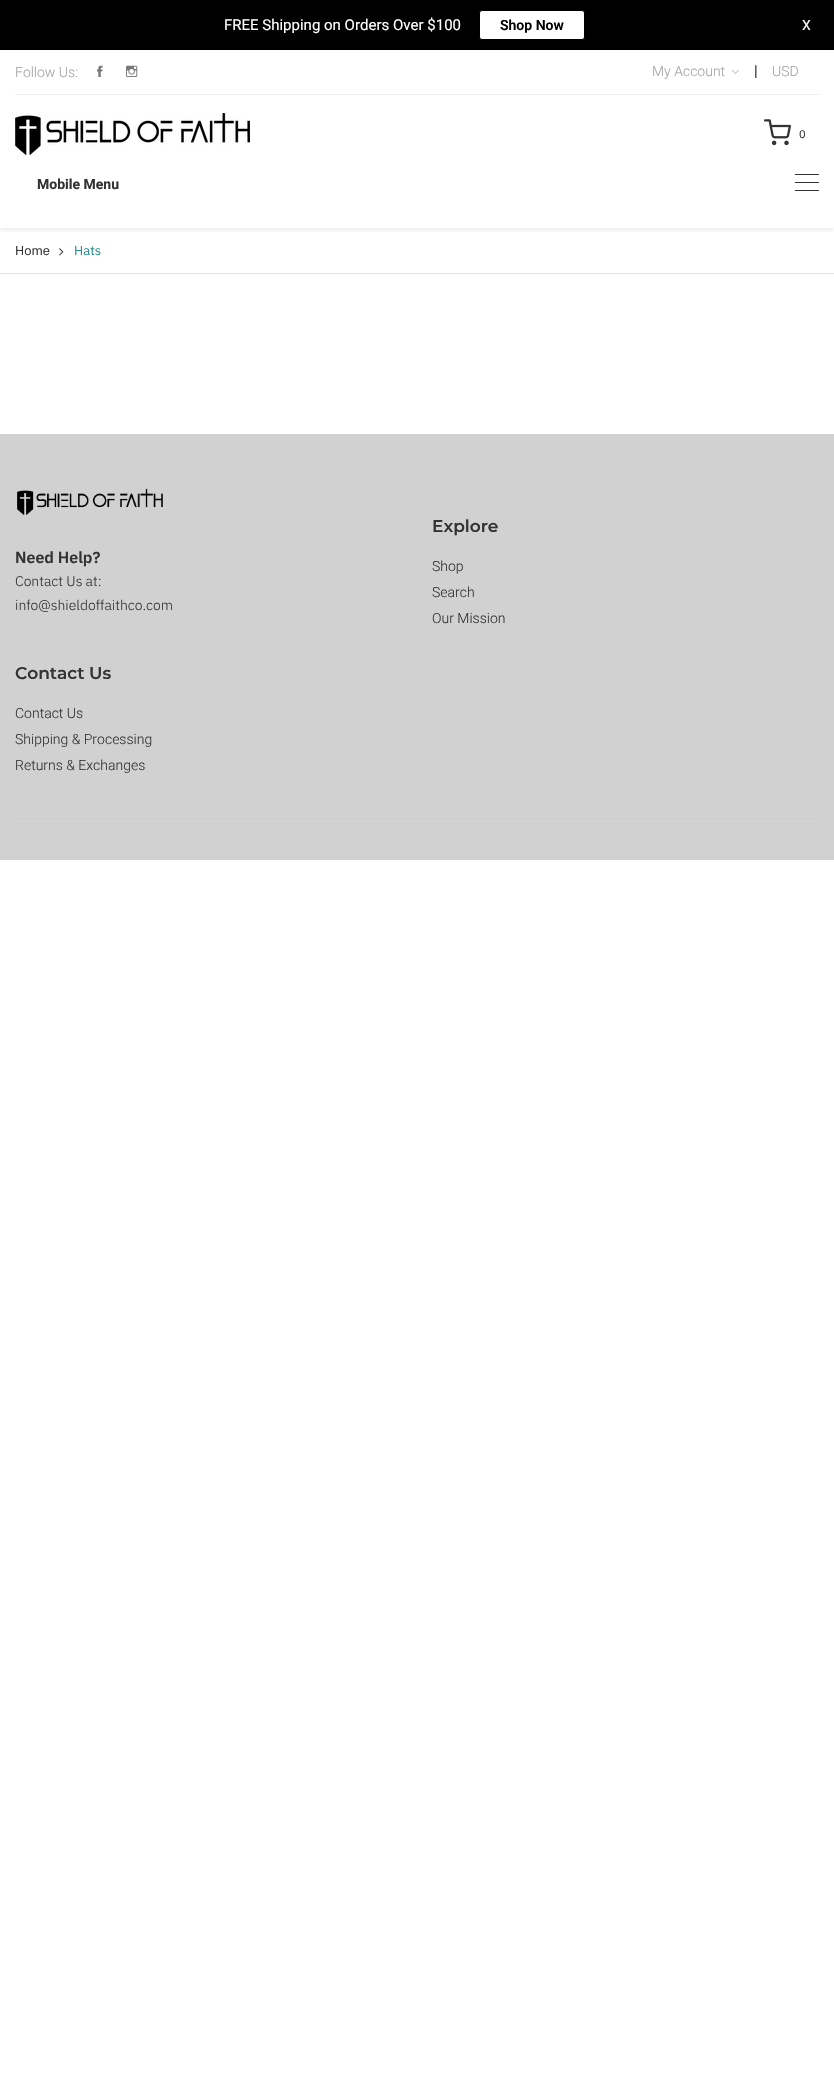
void draw(SkCanvas* canvas) {
	SkPaint paint;
	paint.setAntiAlias(true);
	canvas->clear(0xffffffff);
	paint.setColor(0xff000000);
	canvas->drawRect(SkRect::MakeXYWH(0, 0, 834, 50), paint);
	SkFont f1(fontMgr->matchFamilyStyle("Roboto", SkFontStyle::Normal()), 15);
	f1.setSubpixel(true);
	paint.setColor(0xffffffff);
	canvas->drawString("FREE Shipping on Orders Over $100", 224, 30, f1, paint);
	canvas->drawRoundRect(SkRect::MakeXYWH(479.5, 10.5, 105, 29), 2.5, 2.5, paint);
	paint.setStroke(true);
	paint.setStrokeWidth(1);
	paint.setColor(0xff000000);
	canvas->drawRoundRect(SkRect::MakeXYWH(479.5, 10.5, 105, 29), 2.5, 2.5, paint);
	SkFont f2(fontMgr->matchFamilyStyle("Roboto", SkFontStyle(600, SkFontStyle::kNormal_Width, SkFontStyle::kUpright_Slant)), 14);
	f2.setSubpixel(true);
	paint.setStroke(false);
	canvas->drawString("Shop Now", 500, 30, f2, paint);
	SkFont f3(fontMgr->matchFamilyStyle("Roboto", SkFontStyle::Normal()), 14);
	f3.setSubpixel(true);
	paint.setColor(0xffffffff);
	canvas->drawString("X", 802, 30, f3, paint);
	canvas->save();
	canvas->clipRect(SkRect::MakeXYWH(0, 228, 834, 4));
	paint.setColor(0x14000000);
	paint.setMaskFilter(SkMaskFilter::MakeBlur(kNormal_SkBlurStyle, 2.5));
	canvas->drawRect(SkRect::MakeXYWH(0, 52, 834, 178), paint);
	paint.setMaskFilter(nullptr);
	canvas->restore();
	paint.setColor(0xffededed);
	canvas->drawRect(SkRect::MakeXYWH(15, 94, 804, 1), paint);
	SkFont f4(fontMgr->matchFamilyStyle("Roboto", SkFontStyle(300, SkFontStyle::kNormal_Width, SkFontStyle::kUpright_Slant)), 14);
	f4.setSubpixel(true);
	paint.setColor(0xffa4a4a4);
	canvas->drawString("Follow Us:", 15, 77, f4, paint);
	canvas->drawImageRect(SkImages::DeferredFromEncodedData(SkData::MakeFromFileName("img1.png")), SkRect::MakeXYWH(97, 65, 6, 12), SkSamplingOptions());
	canvas->drawImageRect(SkImages::DeferredFromEncodedData(SkData::MakeFromFileName("img2.png")), SkRect::MakeXYWH(126, 65, 12, 12), SkSamplingOptions());
	canvas->drawString("My Account", 652, 76, f4, paint);
	canvas->drawImageRect(SkImages::DeferredFromEncodedData(SkData::MakeFromFileName("img3.png")), SkRect::MakeXYWH(732, 70, 7, 4), SkSamplingOptions());
	paint.setColor(0xff333333);
	canvas->drawString("|", 754, 76, f1, paint);
	paint.setColor(0xffa4a4a4);
	canvas->drawString("USD", 772, 76, f4, paint);
	canvas->drawImageRect(SkImages::DeferredFromEncodedData(SkData::MakeFromFileName("img4.png")), SkRect::MakeXYWH(15, 113, 235, 42), SkSamplingOptions());
	canvas->drawImageRect(SkImages::DeferredFromEncodedData(SkData::MakeFromFileName("img5.png")), SkRect::MakeXYWH(764, 119, 27, 27), SkSamplingOptions());
	SkFont f5(fontMgr->matchFamilyStyle("IBM Plex Sans", SkFontStyle::Normal()), 11);
	f5.setSubpixel(true);
	paint.setColor(0xff333333);
	canvas->drawString("0", 799, 138, f5, paint);
	SkFont f6(fontMgr->matchFamilyStyle("Roboto", SkFontStyle::Bold()), 14);
	f6.setSubpixel(true);
	canvas->drawString("Mobile Menu", 37, 189, f6, paint);
	canvas->drawRect(SkRect::MakeXYWH(795, 182, 24, 1), paint);
	canvas->drawRect(SkRect::MakeXYWH(795, 174, 24, 1), paint);
	canvas->drawRect(SkRect::MakeXYWH(795, 190, 24, 1), paint);
	paint.setColor(0xffdee2e6);
	canvas->drawRect(SkRect::MakeXYWH(0, 273, 834, 1), paint);
	SkFont f7(fontMgr->matchFamilyStyle("IBM Plex Sans", SkFontStyle::Normal()), 13);
	f7.setSubpixel(true);
	paint.setColor(0xff333333);
	canvas->drawString("Home", 15, 255, f7, paint);
	canvas->drawImageRect(SkImages::DeferredFromEncodedData(SkData::MakeFromFileName("img6.png")), SkRect::MakeXYWH(59, 248, 5, 8), SkSamplingOptions());
	paint.setColor(0xff2c8f8f);
	canvas->drawString("Hats", 74, 255, f7, paint);
	paint.setColor(0xffd1d1d1);
	canvas->drawRect(SkRect::MakeXYWH(0, 434, 834, 426), paint);
	canvas->drawImageRect(SkImages::DeferredFromEncodedData(SkData::MakeFromFileName("img7.png")), SkRect::MakeXYWH(17, 488, 146, 28), SkSamplingOptions());
	SkFont f8(fontMgr->matchFamilyStyle("IBM Plex Sans", SkFontStyle(600, SkFontStyle::kNormal_Width, SkFontStyle::kUpright_Slant)), 16);
	f8.setSubpixel(true);
	paint.setColor(0xff333333);
	canvas->drawString("Need Help?", 15, 563, f8, paint);
	SkFont f9(fontMgr->matchFamilyStyle("IBM Plex Sans", SkFontStyle(300, SkFontStyle::kNormal_Width, SkFontStyle::kUpright_Slant)), 14);
	f9.setSubpixel(true);
	canvas->drawString("Contact Us at:", 15, 586, f9, paint);
	canvas->drawString("info@shieldoffaithco.com", 15, 610, f9, paint);
	SkFont f10(fontMgr->matchFamilyStyle("Montserrat", SkFontStyle(600, SkFontStyle::kNormal_Width, SkFontStyle::kUpright_Slant)), 17);
	f10.setSubpixel(true);
	canvas->drawString("Explore", 432, 532, f10, paint);
	canvas->drawString("Shop", 432, 571, f4, paint);
	canvas->drawString("Search", 432, 597, f4, paint);
	canvas->drawString("Our Mission", 432, 623, f4, paint);
	canvas->drawString("Contact Us", 15, 679, f10, paint);
	canvas->drawString("Contact Us", 15, 718, f4, paint);
	canvas->drawString("Shipping & Processing", 15, 744, f4, paint);
	canvas->drawString("Returns & Exchanges", 15, 770, f4, paint);
	paint.setColor(0xffcccccc);
	canvas->drawRect(SkRect::MakeXYWH(15, 818, 804, 1), paint);
}
